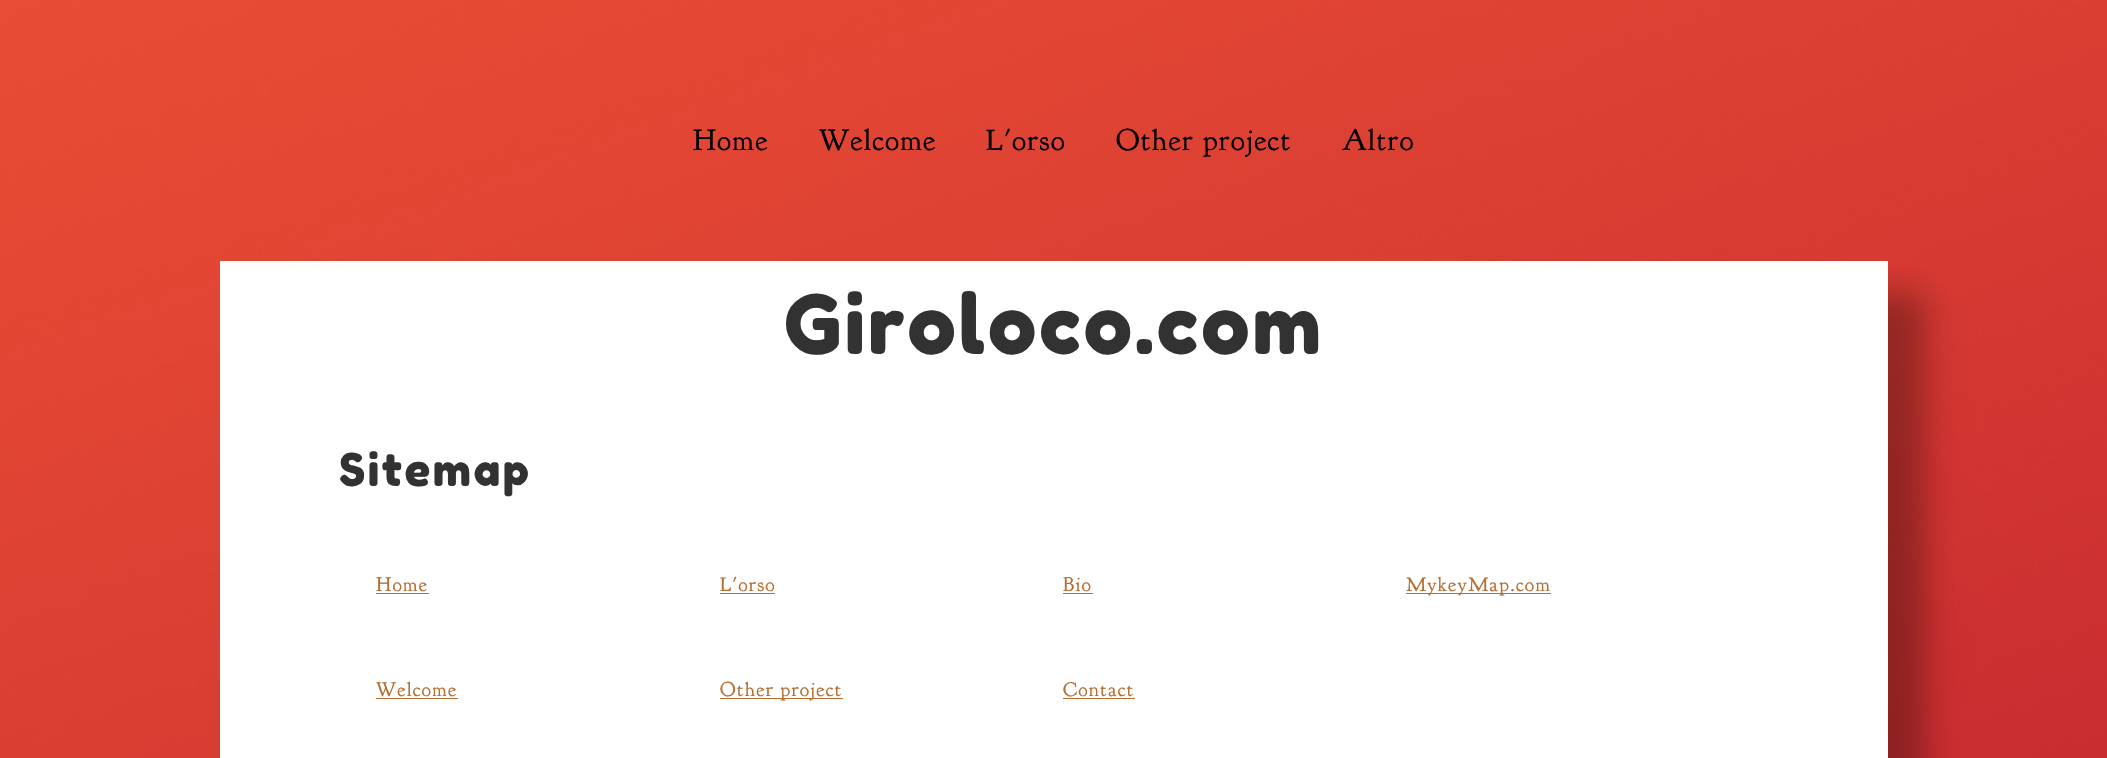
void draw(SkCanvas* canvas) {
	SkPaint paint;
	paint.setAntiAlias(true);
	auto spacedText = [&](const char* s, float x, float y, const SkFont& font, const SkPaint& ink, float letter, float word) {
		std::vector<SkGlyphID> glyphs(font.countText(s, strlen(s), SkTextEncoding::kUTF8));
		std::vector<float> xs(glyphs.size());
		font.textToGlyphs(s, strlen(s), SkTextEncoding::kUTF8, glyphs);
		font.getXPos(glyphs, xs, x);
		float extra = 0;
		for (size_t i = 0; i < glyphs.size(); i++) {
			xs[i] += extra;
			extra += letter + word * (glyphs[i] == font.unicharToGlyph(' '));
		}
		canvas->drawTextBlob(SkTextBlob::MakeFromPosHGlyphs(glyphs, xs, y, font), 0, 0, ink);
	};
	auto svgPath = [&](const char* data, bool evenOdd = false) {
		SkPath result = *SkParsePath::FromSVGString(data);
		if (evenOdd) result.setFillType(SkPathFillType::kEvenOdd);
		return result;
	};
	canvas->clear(0xffffffff);
	canvas->drawImageRect(SkImages::DeferredFromEncodedData(SkData::MakeFromFileName("img1.png")), SkRect::MakeXYWH(0, 0, 2107, 758), SkSamplingOptions());
	SkFont f1(fontMgr->matchFamilyStyle("Goudy Bookletter 1911", SkFontStyle::Normal()), 30);
	f1.setSubpixel(true);
	paint.setColor(0xff000000);
	spacedText("Home", 693, 150, f1, paint, 1.25, 0);
	spacedText("Welcome", 819, 150, f1, paint, 1.25, 0);
	spacedText("L'orso", 986, 150, f1, paint, 1.25, 0);
	spacedText("Other project", 1116, 150, f1, paint, 1.25, 0);
	spacedText("Altro", 1342, 150, f1, paint, 1.25, 0);
	paint.setColor(0xffffffff);
	canvas->drawRect(SkRect::MakeXYWH(220, 261, 1668, 497), paint);
	canvas->save();
	canvas->clipPath(svgPath("M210 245H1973V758H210ZM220 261H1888V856H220Z", true), true);
	paint.setColor(0x4d000000);
	paint.setMaskFilter(SkMaskFilter::MakeBlur(kNormal_SkBlurStyle, 15.5));
	canvas->drawRect(SkRect::MakeXYWH(258, 293, 1667, 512), paint);
	paint.setMaskFilter(nullptr);
	canvas->restore();
	SkFont f2(fontMgr->matchFamilyStyle("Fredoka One", SkFontStyle::Normal()), 81.25);
	f2.setSubpixel(true);
	paint.setColor(0xff323232);
	spacedText("Giroloco.com", 784, 354, f2, paint, 2.5, 0);
	SkFont f3(fontMgr->matchFamilyStyle("Fredoka One", SkFontStyle::Normal()), 45);
	f3.setSubpixel(true);
	spacedText("Sitemap", 339, 486, f3, paint, 2.5, 0);
	SkFont f4(fontMgr->matchFamilyStyle("Goudy Bookletter 1911", SkFontStyle::Normal()), 20);
	f4.setSubpixel(true);
	paint.setColor(0xffb66d32);
	spacedText("Home", 376, 591, f4, paint, 1.25, 0);
	canvas->drawRect(SkRect::MakeXYWH(376, 593, 53, 1), paint);
	spacedText("L'orso", 720, 591, f4, paint, 1.25, 0);
	canvas->drawRect(SkRect::MakeXYWH(720, 593, 55, 1), paint);
	spacedText("Bio", 1063, 591, f4, paint, 1.25, 0);
	canvas->drawRect(SkRect::MakeXYWH(1063, 593, 30, 1), paint);
	canvas->drawRect(SkRect::MakeXYWH(1406, 593, 145, 1), paint);
	spacedText("MykeyMap.com", 1406, 591, f4, paint, 1.25, 0);
	spacedText("Welcome", 376, 696, f4, paint, 1.25, 0);
	canvas->drawRect(SkRect::MakeXYWH(376, 698, 82, 1), paint);
	canvas->drawRect(SkRect::MakeXYWH(720, 698, 123, 1), paint);
	spacedText("Other project", 720, 696, f4, paint, 1.25, 0);
	spacedText("Contact", 1063, 696, f4, paint, 1.25, 0);
	canvas->drawRect(SkRect::MakeXYWH(1063, 698, 72, 1), paint);
}
